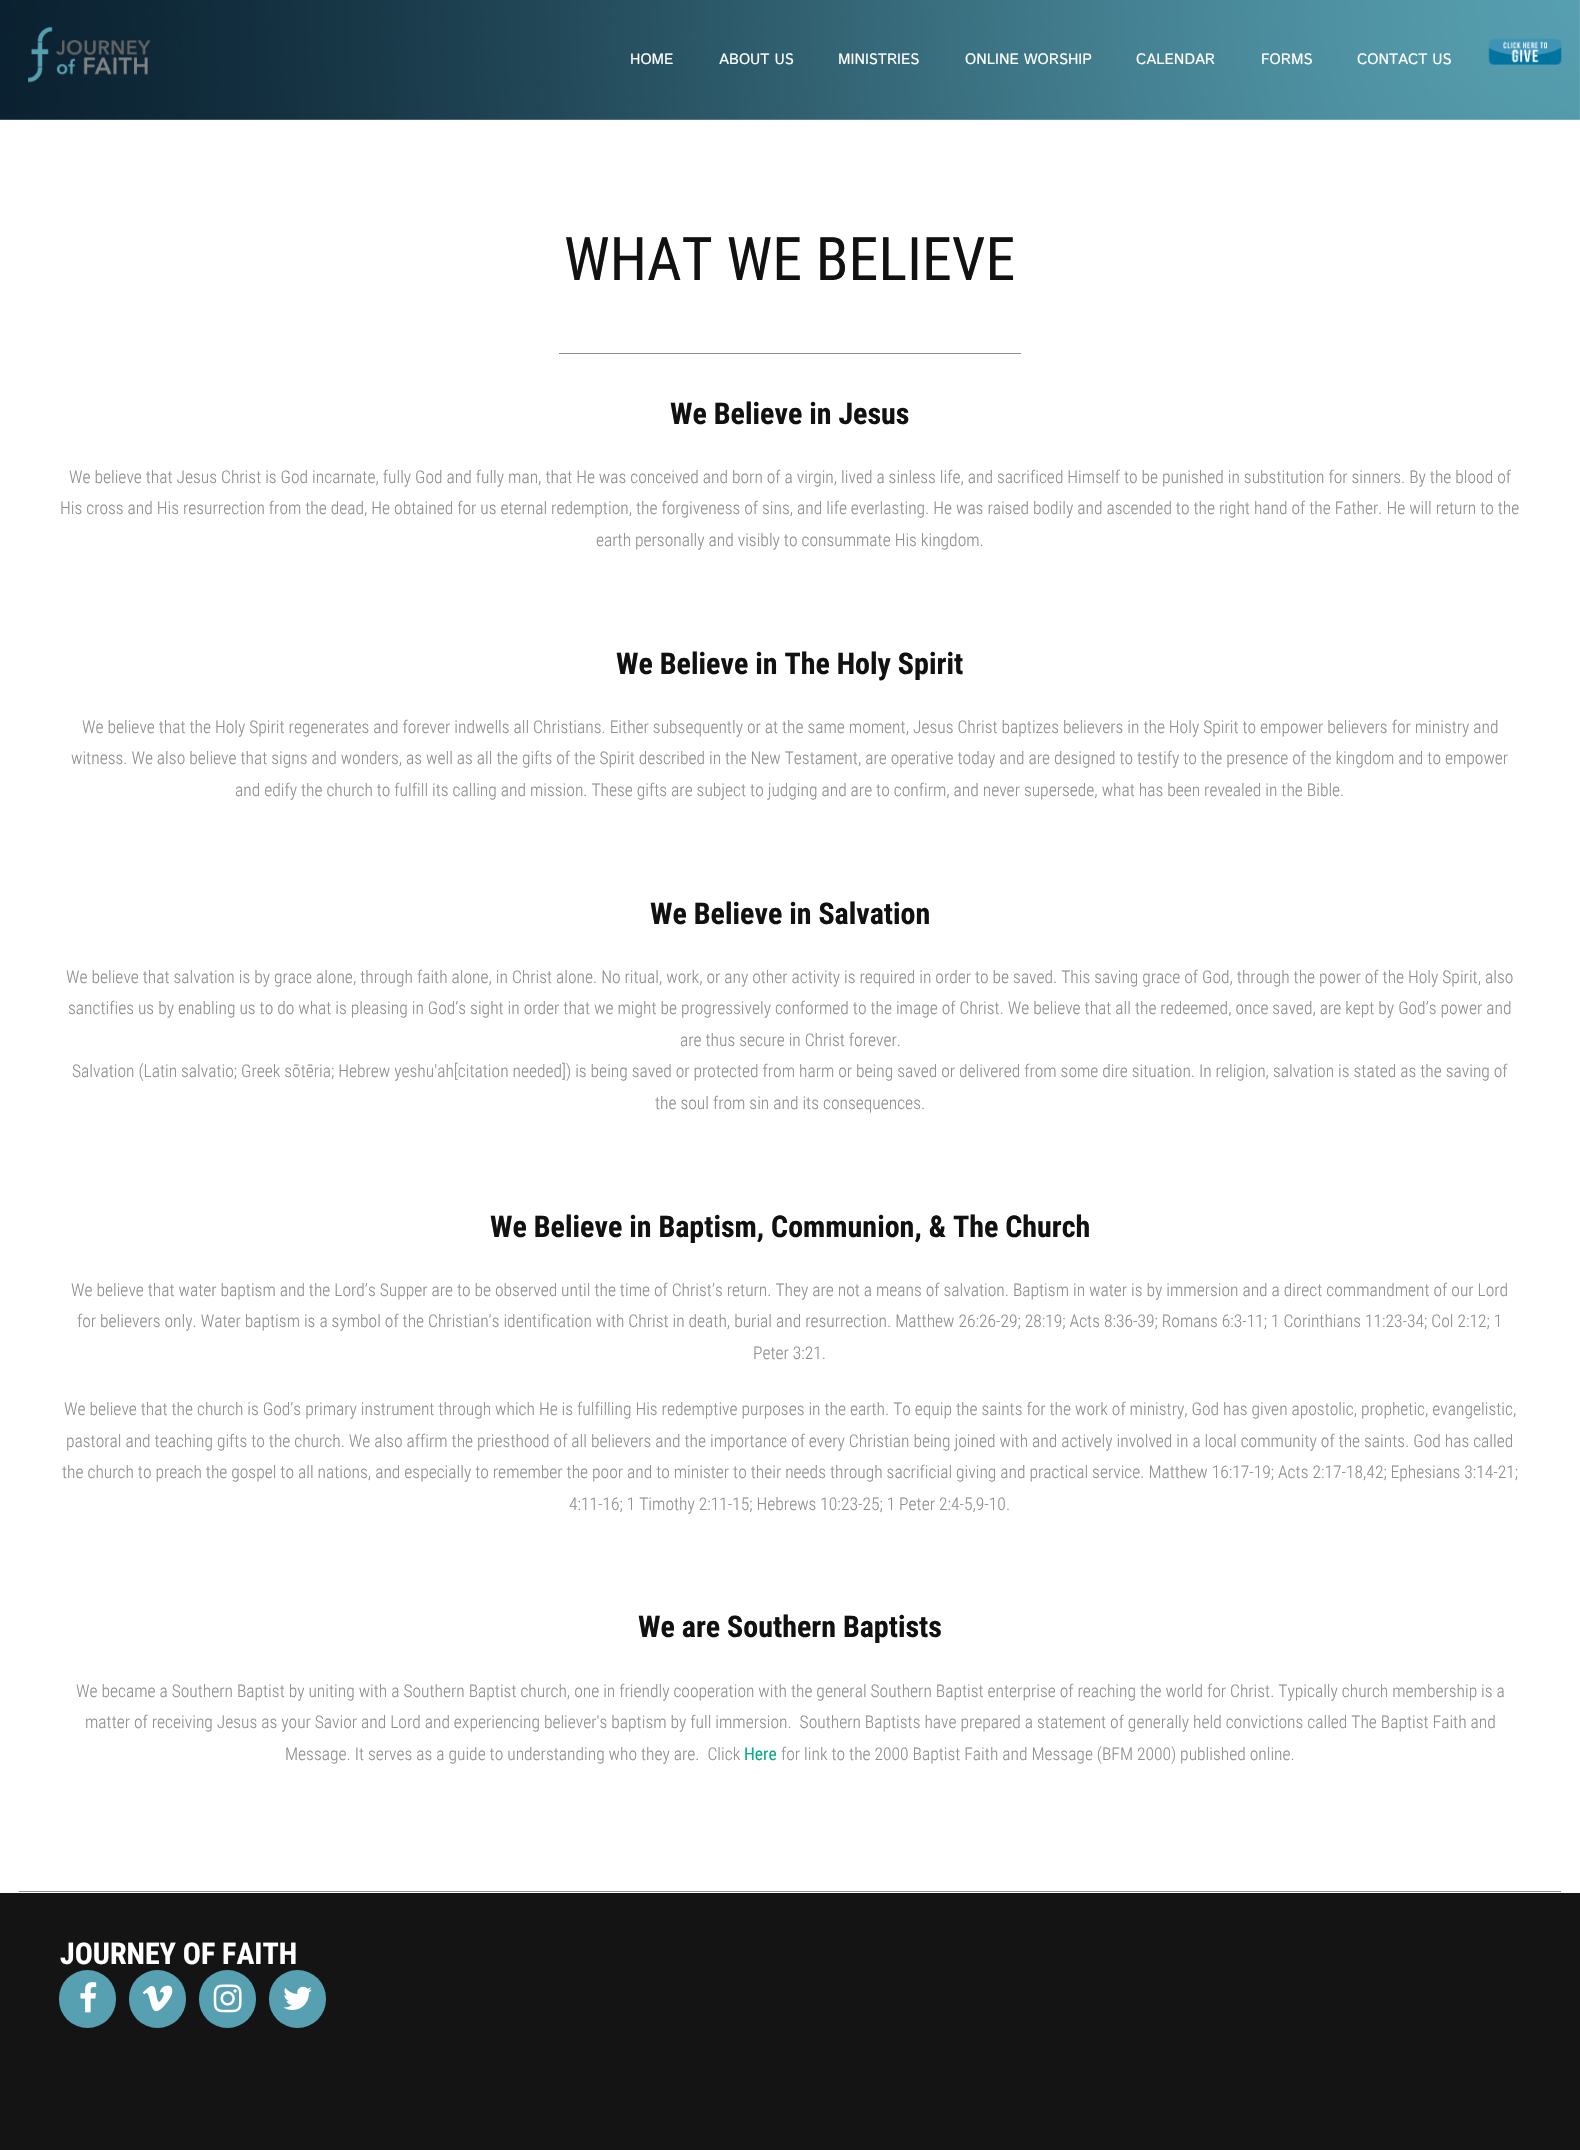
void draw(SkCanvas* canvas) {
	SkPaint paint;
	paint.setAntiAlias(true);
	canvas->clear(0xffffffff);
	canvas->drawImageRect(SkImages::DeferredFromEncodedData(SkData::MakeFromFileName("img1.png")), SkRect::MakeXYWH(0, 0, 1580, 120), SkSamplingOptions());
	canvas->drawImageRect(SkImages::DeferredFromEncodedData(SkData::MakeFromFileName("img2.png")), SkRect::MakeXYWH(28, 26, 123, 57), SkSamplingOptions());
	SkFont f1(fontMgr->matchFamilyStyle("Istok Web", SkFontStyle::Normal()), 15);
	f1.setSubpixel(true);
	paint.setColor(0xffffffff);
	canvas->drawString("HOME", 630, 64, f1, paint);
	canvas->drawString("ABOUT US", 719, 64, f1, paint);
	canvas->drawString("MINISTRIES", 838, 64, f1, paint);
	canvas->drawString("ONLINE WORSHIP", 965, 64, f1, paint);
	canvas->drawString("CALENDAR", 1136, 64, f1, paint);
	canvas->drawString("FORMS", 1261, 64, f1, paint);
	canvas->drawString("CONTACT US", 1357, 64, f1, paint);
	canvas->drawImageRect(SkImages::DeferredFromEncodedData(SkData::MakeFromFileName("img3.png")), SkRect::MakeXYWH(1488, 38, 74, 27), SkSamplingOptions());
	SkFont f2(fontMgr->matchFamilyStyle("Roboto Condensed", SkFontStyle::Normal()), 60);
	f2.setSubpixel(true);
	paint.setColor(0xff111111);
	canvas->drawString("WHAT WE BELIEVE", 564, 280, f2, paint);
	paint.setColor(0xff8f8e8e);
	canvas->drawRect(SkRect::MakeXYWH(559, 353, 462, 1), paint);
	SkFont f3(fontMgr->matchFamilyStyle("Roboto Condensed", SkFontStyle::Bold()), 30);
	f3.setSubpixel(true);
	paint.setColor(0xff111111);
	canvas->drawString("We Believe in Jesus", 670, 424, f3, paint);
	SkFont f4(fontMgr->matchFamilyStyle("Roboto Condensed", SkFontStyle(300, SkFontStyle::kNormal_Width, SkFontStyle::kUpright_Slant)), 17.5);
	f4.setSubpixel(true);
	paint.setColor(0xff8f8e8e);
	canvas->drawString("We believe that Jesus Christ is God incarnate, fully God and fully man, that He was conceived and born of a virgin, lived a sinless life, and sacrificed Himself to be punished in substitution for sinners. By the blood of", 69, 483, f4, paint);
	canvas->drawString("His cross and His resurrection from the dead, He obtained for us eternal redemption, the forgiveness of sins, and life everlasting. He was raised bodily and ascended to the right hand of the Father. He will return to the", 60, 514, f4, paint);
	canvas->drawString("earth personally and visibly to consummate His kingdom.", 596, 546, f4, paint);
	paint.setColor(0xff111111);
	canvas->drawString("We Believe in The Holy Spirit", 616, 674, f3, paint);
	paint.setColor(0xff8f8e8e);
	canvas->drawString("We believe that the Holy Spirit regenerates and forever indwells all Christians. Either subsequently or at the same moment, Jesus Christ baptizes believers in the Holy Spirit to empower believers for ministry and", 82, 733, f4, paint);
	canvas->drawString("witness. We also believe that signs and wonders, as well as all the gifts of the Spirit described in the New Testament, are operative today and are designed to testify to the presence of the kingdom and to empower", 71, 764, f4, paint);
	canvas->drawString("and edify the church to fulfill its calling and mission. These gifts are subject to judging and are to confirm, and never supersede, what has been revealed in the Bible.", 235, 796, f4, paint);
	paint.setColor(0xff111111);
	canvas->drawString("We Believe in Salvation", 650, 924, f3, paint);
	paint.setColor(0xff8f8e8e);
	canvas->drawString("We believe that salvation is by grace alone, through faith alone, in Christ alone. No ritual, work, or any other activity is required in order to be saved. This saving grace of God, through the power of the Holy Spirit, also", 66, 983, f4, paint);
	canvas->drawString("sanctifies us by enabling us to do what is pleasing in God’s sight in order that we might be progressively conformed to the image of Christ. We believe that all the redeemed, once saved, are kept by God’s power and", 68, 1014, f4, paint);
	canvas->drawString("are thus secure in Christ forever.", 680, 1046, f4, paint);
	canvas->drawString("Salvation (Latin salvatio; Greek sōtēria; Hebrew yeshu'ah[citation needed]) is being saved or protected from harm or being saved or delivered from some dire situation. In religion, salvation is stated as the saving of", 72, 1077, f4, paint);
	canvas->drawString("the soul from sin and its consequences.", 655, 1109, f4, paint);
	paint.setColor(0xff111111);
	canvas->drawString("We Believe in Baptism, Communion, & The Church", 490, 1237, f3, paint);
	paint.setColor(0xff8f8e8e);
	canvas->drawString("We believe that water baptism and the Lord’s Supper are to be observed until the time of Christ’s return. They are not a means of salvation. Baptism in water is by immersion and a direct commandment of our Lord", 71, 1296, f4, paint);
	canvas->drawString("for believers only. Water baptism is a symbol of the Christian’s identification with Christ in death, burial and resurrection. Matthew 26:26-29; 28:19; Acts 8:36-39; Romans 6:3-11; 1 Corinthians 11:23-34; Col 2:12; 1", 77, 1327, f4, paint);
	canvas->drawString("Peter 3:21.", 753, 1359, f4, paint);
	canvas->drawString("We believe that the church is God’s primary instrument through which He is fulfilling His redemptive purposes in the earth. To equip the saints for the work of ministry, God has given apostolic, prophetic, evangelistic,", 64, 1415, f4, paint);
	canvas->drawString("pastoral and teaching gifts to the church. We also affirm the priesthood of all believers and the importance of every Christian being joined with and actively involved in a local community of the saints. God has called", 66, 1447, f4, paint);
	canvas->drawString("the church to preach the gospel to all nations, and especially to remember the poor and to minister to their needs through sacrificial giving and practical service. Matthew 16:17-19; Acts 2:17-18,42; Ephesians 3:14-21;", 62, 1478, f4, paint);
	canvas->drawString("4:11-16; 1 Timothy 2:11-15; Hebrews 10:23-25; 1 Peter 2:4-5,9-10.", 569, 1510, f4, paint);
	paint.setColor(0xff111111);
	canvas->drawString("We are Southern Baptists", 638, 1637, f3, paint);
	paint.setColor(0xff8f8e8e);
	canvas->drawString("We became a Southern Baptist by uniting with a Southern Baptist church, one in friendly cooperation with the general Southern Baptist enterprise of reaching the world for Christ. Typically church membership is a", 76, 1697, f4, paint);
	canvas->drawString("matter of receiving Jesus as your Savior and Lord and experiencing believer's baptism by full immersion.  Southern Baptists have prepared a statement of generally held convictions called The Baptist Faith and", 85, 1728, f4, paint);
	canvas->drawString("Message. It serves as a guide to understanding who they are.  Click", 285, 1760, f4, paint);
	SkFont f5(fontMgr->matchFamilyStyle("Roboto Condensed", SkFontStyle::Normal()), 17.5);
	f5.setSubpixel(true);
	paint.setColor(0xff0aab8a);
	canvas->drawString("Here", 744, 1760, f5, paint);
	paint.setColor(0xff8f8e8e);
	canvas->drawString("for link to the 2000 Baptist Faith and Message (BFM 2000) published online.", 781, 1760, f4, paint);
	canvas->drawRect(SkRect::MakeXYWH(19, 1891, 1542, 1), paint);
	paint.setColor(0xff141414);
	canvas->drawRect(SkRect::MakeXYWH(0, 1893, 1580, 257), paint);
	paint.setColor(0xffffffff);
	canvas->drawString("JOURNEY OF FAITH", 60, 1964, f3, paint);
	paint.setColor(0xff57a0b1);
	canvas->drawRoundRect(SkRect::MakeXYWH(59, 1970, 57, 58), 28.5, 28.5, paint);
	canvas->drawImageRect(SkImages::DeferredFromEncodedData(SkData::MakeFromFileName("img4.png")), SkRect::MakeXYWH(80, 1982, 17, 31), SkSamplingOptions());
	canvas->drawRoundRect(SkRect::MakeXYWH(129, 1970, 57, 58), 28.5, 28.5, paint);
	canvas->drawImageRect(SkImages::DeferredFromEncodedData(SkData::MakeFromFileName("img5.png")), SkRect::MakeXYWH(142, 1985, 31, 27), SkSamplingOptions());
	canvas->drawRoundRect(SkRect::MakeXYWH(199, 1970, 57, 58), 28.5, 28.5, paint);
	canvas->drawImageRect(SkImages::DeferredFromEncodedData(SkData::MakeFromFileName("img6.png")), SkRect::MakeXYWH(213, 1984, 29, 29), SkSamplingOptions());
	canvas->drawRoundRect(SkRect::MakeXYWH(269, 1970, 57, 58), 28.5, 28.5, paint);
	canvas->drawImageRect(SkImages::DeferredFromEncodedData(SkData::MakeFromFileName("img7.png")), SkRect::MakeXYWH(283, 1986, 29, 24), SkSamplingOptions());
}
